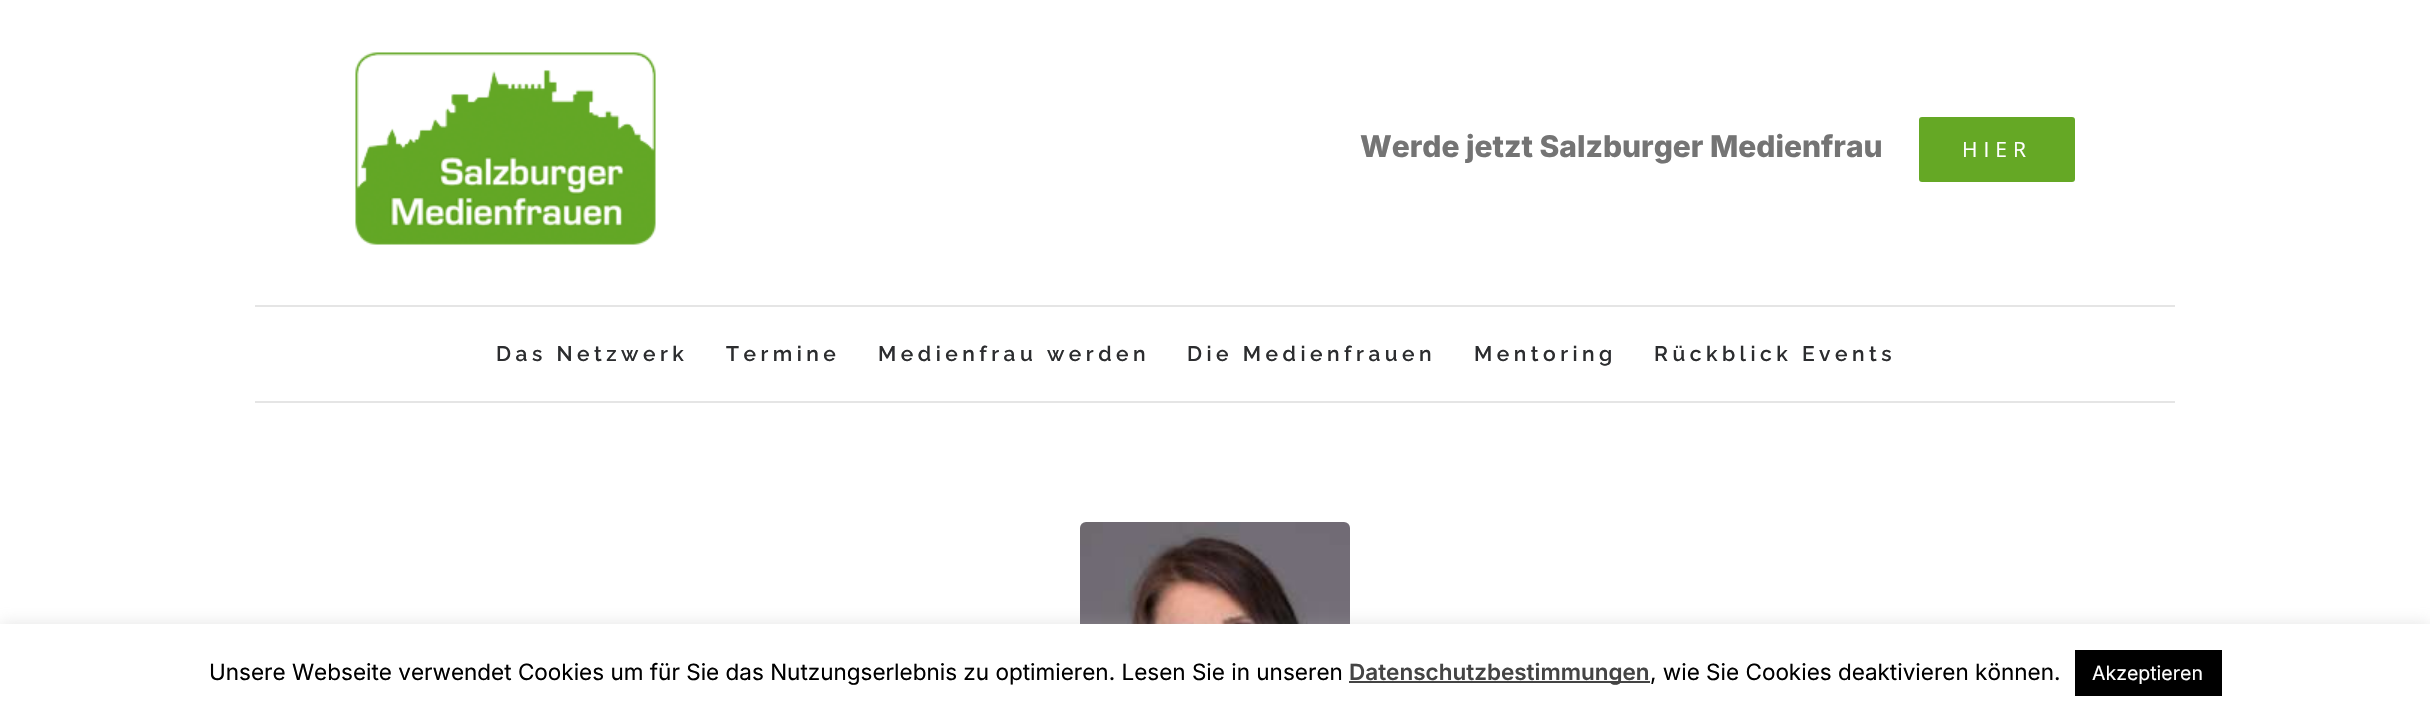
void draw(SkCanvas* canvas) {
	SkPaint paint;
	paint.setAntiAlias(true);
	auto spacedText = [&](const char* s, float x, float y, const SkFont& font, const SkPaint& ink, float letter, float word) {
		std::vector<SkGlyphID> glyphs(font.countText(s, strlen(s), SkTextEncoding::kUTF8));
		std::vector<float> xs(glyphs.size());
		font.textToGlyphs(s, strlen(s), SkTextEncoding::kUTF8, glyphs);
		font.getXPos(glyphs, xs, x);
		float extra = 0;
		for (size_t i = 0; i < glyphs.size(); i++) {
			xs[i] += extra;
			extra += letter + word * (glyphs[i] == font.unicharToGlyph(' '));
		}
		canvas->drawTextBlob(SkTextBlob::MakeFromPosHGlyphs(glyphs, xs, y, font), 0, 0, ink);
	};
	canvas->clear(0xffffffff);
	paint.setColor(0xffe5e5e5);
	canvas->drawRect(SkRect::MakeXYWH(255, 305, 1920, 2), paint);
	canvas->drawImageRect(SkImages::DeferredFromEncodedData(SkData::MakeFromFileName("img1.png")), SkRect::MakeXYWH(355, 52, 301, 193), SkSamplingOptions());
	SkFont f1(fontMgr->matchFamilyStyle("Inter", SkFontStyle(800, SkFontStyle::kNormal_Width, SkFontStyle::kUpright_Slant)), 30);
	f1.setSubpixel(true);
	paint.setColor(0xff747474);
	canvas->drawString("Werde jetzt Salzburger Medienfrau", 1360, 157, f1, paint);
	paint.setColor(0xff65a825);
	canvas->drawRoundRect(SkRect::MakeXYWH(1919, 117, 156, 65), 3, 3, paint);
	SkFont f2(fontMgr->matchFamilyStyle("Open Sans", SkFontStyle::Normal()), 21);
	f2.setSubpixel(true);
	paint.setColor(0xffffffff);
	spacedText("HIER", 1962, 157, f2, paint, 6, 0);
	paint.setColor(0xffe5e5e5);
	canvas->drawRect(SkRect::MakeXYWH(255, 401, 1920, 2), paint);
	SkFont f3(fontMgr->matchFamilyStyle("Raleway", SkFontStyle(600, SkFontStyle::kNormal_Width, SkFontStyle::kUpright_Slant)), 21);
	f3.setSubpixel(true);
	paint.setColor(0xff2c2d2f);
	spacedText("Das Netzwerk", 496, 361, f3, paint, 4.5, 0);
	spacedText("Termine", 726, 361, f3, paint, 4.5, 0);
	spacedText("Medienfrau werden", 878, 361, f3, paint, 4.5, 0);
	spacedText("Die Medienfrauen", 1187, 361, f3, paint, 4.5, 0);
	spacedText("Mentoring", 1474, 361, f3, paint, 4.5, 0);
	spacedText("Rückblick Events", 1654, 361, f3, paint, 4.5, 0);
	canvas->drawImageRect(SkImages::DeferredFromEncodedData(SkData::MakeFromFileName("img2.png")), SkRect::MakeXYWH(1080, 522, 270, 102), SkSamplingOptions());
	paint.setColor(0x4dacabab);
	paint.setMaskFilter(SkMaskFilter::MakeBlur(kNormal_SkBlurStyle, 7.5));
	canvas->drawRect(SkRect::MakeXYWH(0, 623, 2430, 90), paint);
	paint.setMaskFilter(nullptr);
	paint.setColor(0xffffffff);
	canvas->drawRect(SkRect::MakeXYWH(0, 624, 2430, 90), paint);
	SkFont f4(fontMgr->matchFamilyStyle("Inter", SkFontStyle::Normal()), 22.5);
	f4.setSubpixel(true);
	paint.setColor(0xff000000);
	canvas->drawString("Unsere Webseite verwendet Cookies um für Sie das Nutzungserlebnis zu optimieren. Lesen Sie in unseren", 209, 680, f4, paint);
	paint.setColor(0xff444444);
	canvas->drawRect(SkRect::MakeXYWH(1349, 681, 301, 2), paint);
	SkFont f5(fontMgr->matchFamilyStyle("Inter", SkFontStyle(600, SkFontStyle::kNormal_Width, SkFontStyle::kUpright_Slant)), 22.5);
	f5.setSubpixel(true);
	canvas->drawString("Datenschutzbestimmungen", 1349, 680, f5, paint);
	paint.setColor(0xff000000);
	canvas->drawString(", wie Sie Cookies deaktivieren können.", 1650, 680, f4, paint);
	canvas->drawRect(SkRect::MakeXYWH(2075, 650, 147, 46), paint);
	SkFont f6(fontMgr->matchFamilyStyle("Inter", SkFontStyle::Normal()), 19.5);
	f6.setSubpixel(true);
	paint.setColor(0xffffffff);
	canvas->drawString("Akzeptieren", 2092, 680, f6, paint);
}
